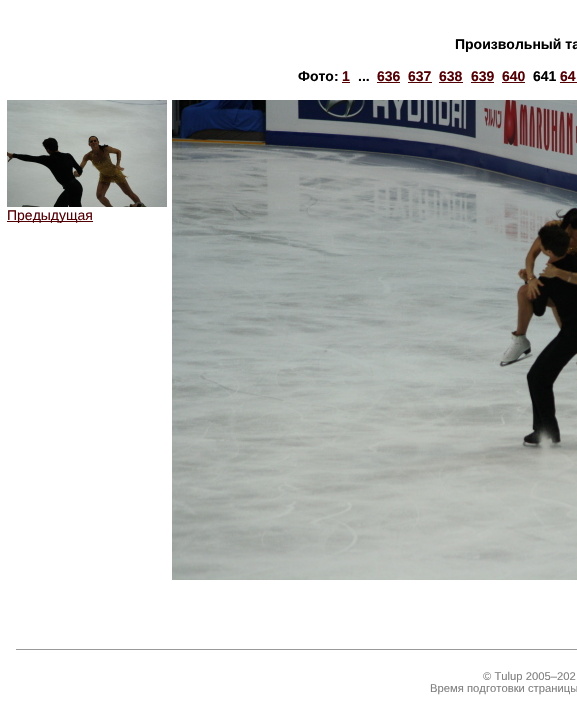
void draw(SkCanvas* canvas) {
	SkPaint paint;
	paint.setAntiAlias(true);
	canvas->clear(0xffffffff);
	SkFont f1(fontMgr->matchFamilyStyle("Liberation Sans", SkFontStyle::Bold()), 14);
	f1.setSubpixel(true);
	paint.setColor(0xff000000);
	canvas->drawString("Произвольный та", 455, 49, f1, paint);
	canvas->drawString("Фото:", 298, 81, f1, paint);
	paint.setColor(0xff530004);
	canvas->drawString("1", 342, 81, f1, paint);
	canvas->drawRect(SkRect::MakeXYWH(342, 82, 8, 1), paint);
	paint.setColor(0xff000000);
	canvas->drawString("...", 358, 81, f1, paint);
	paint.setColor(0xff530004);
	canvas->drawString("636", 377, 81, f1, paint);
	canvas->drawRect(SkRect::MakeXYWH(377, 82, 23, 1), paint);
	canvas->drawString("637", 408, 81, f1, paint);
	canvas->drawRect(SkRect::MakeXYWH(408, 82, 24, 1), paint);
	canvas->drawString("638", 439, 81, f1, paint);
	canvas->drawRect(SkRect::MakeXYWH(439, 82, 24, 1), paint);
	canvas->drawString("639", 471, 81, f1, paint);
	canvas->drawRect(SkRect::MakeXYWH(471, 82, 23, 1), paint);
	canvas->drawString("640", 502, 81, f1, paint);
	canvas->drawRect(SkRect::MakeXYWH(502, 82, 23, 1), paint);
	paint.setColor(0xff000000);
	canvas->drawString("641", 533, 81, f1, paint);
	paint.setColor(0xff530004);
	canvas->drawString("64", 560, 81, f1, paint);
	canvas->drawRect(SkRect::MakeXYWH(560, 82, 17, 1), paint);
	canvas->drawImageRect(SkImages::DeferredFromEncodedData(SkData::MakeFromFileName("img1.png")), SkRect::MakeXYWH(7, 100, 160, 107), SkSamplingOptions());
	canvas->drawRect(SkRect::MakeXYWH(7, 221, 86, 1), paint);
	SkFont f2(fontMgr->matchFamilyStyle("Liberation Sans", SkFontStyle::Normal()), 14);
	f2.setSubpixel(true);
	canvas->drawString("Предыдущая", 7, 220, f2, paint);
	canvas->drawImageRect(SkImages::DeferredFromEncodedData(SkData::MakeFromFileName("img2.png")), SkRect::MakeXYWH(172, 100, 405, 480), SkSamplingOptions());
	paint.setColor(0xff999999);
	canvas->drawRect(SkRect::MakeXYWH(16, 649, 561, 1), paint);
	SkFont f3(fontMgr->matchFamilyStyle("Liberation Sans", SkFontStyle::Normal()), 11.25);
	f3.setSubpixel(true);
	paint.setColor(0xff808080);
	canvas->drawString("© Tulup 2005–202", 483, 680, f3, paint);
	canvas->drawString("Время подготовки страницы", 430, 692, f3, paint);
}
